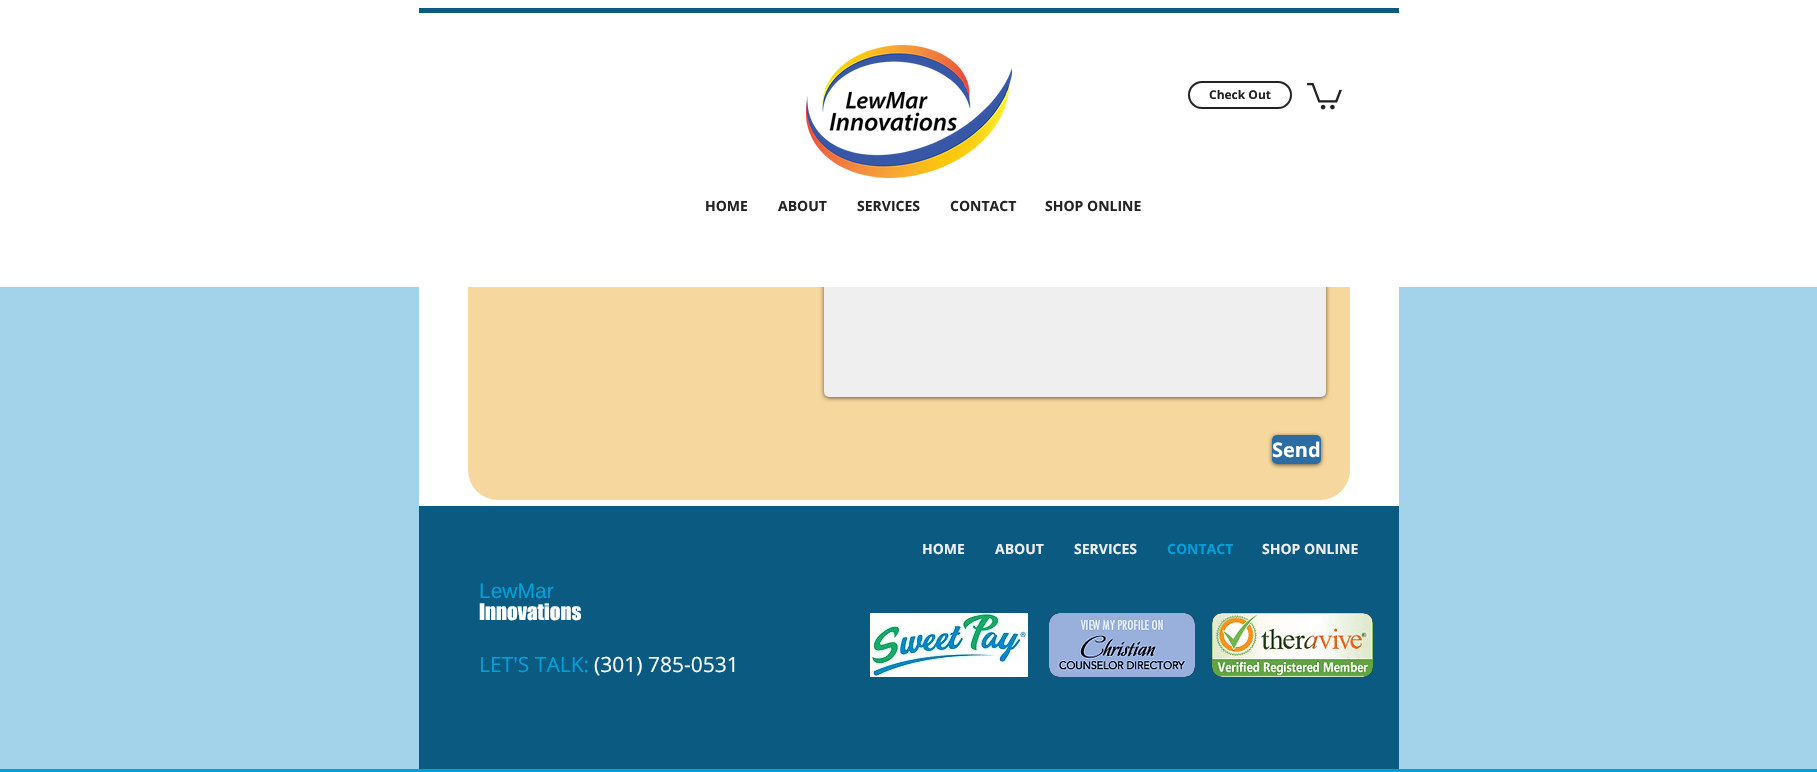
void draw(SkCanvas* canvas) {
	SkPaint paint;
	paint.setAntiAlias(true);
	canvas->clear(0xffa3d3eb);
	paint.setColor(0xffffffff);
	canvas->drawRect(SkRect::MakeXYWH(419, 287, 980, 219), paint);
	paint.setColor(0xfff6d79d);
	canvas->drawRoundRect(SkRect::MakeXYWH(468, -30, 882, 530), 30, 30, paint);
	paint.setColor(0x99000000);
	paint.setMaskFilter(SkMaskFilter::MakeBlur(kNormal_SkBlurStyle, 2));
	canvas->drawRoundRect(SkRect::MakeXYWH(824, 262, 502, 136), 5, 5, paint);
	paint.setMaskFilter(nullptr);
	paint.setColor(0xffefefef);
	canvas->drawRoundRect(SkRect::MakeXYWH(824, 261, 502, 136), 5, 5, paint);
	paint.setColor(0xffffffff);
	canvas->drawRect(SkRect::MakeXYWH(0, 0, 1817, 287), paint);
	paint.setColor(0xff0a5a82);
	canvas->drawRect(SkRect::MakeXYWH(419, 8, 980, 5), paint);
	canvas->drawImageRect(SkImages::DeferredFromEncodedData(SkData::MakeFromFileName("img1.png")), SkRect::MakeXYWH(806, 45, 206, 133), SkSamplingOptions());
	paint.setStroke(true);
	paint.setStrokeWidth(2);
	paint.setColor(0xff232323);
	canvas->drawRoundRect(SkRect::MakeXYWH(1189, 82, 102, 26), 13, 13, paint);
	SkFont f1(fontMgr->matchFamilyStyle("Open Sans", SkFontStyle::Bold()), 12);
	f1.setSubpixel(true);
	paint.setStroke(false);
	canvas->drawString("Check Out", 1209, 99, f1, paint);
	canvas->drawImageRect(SkImages::DeferredFromEncodedData(SkData::MakeFromFileName("img2.png")), SkRect::MakeXYWH(1307, 82, 35, 28), SkSamplingOptions());
	SkFont f2(fontMgr->matchFamilyStyle("Open Sans", SkFontStyle::Bold()), 14);
	f2.setSubpixel(true);
	canvas->drawString("HOME", 705, 211, f2, paint);
	canvas->drawString("ABOUT", 778, 211, f2, paint);
	canvas->drawString("SERVICES", 857, 211, f2, paint);
	canvas->drawString("CONTACT", 950, 211, f2, paint);
	canvas->drawString("SHOP ONLINE", 1045, 211, f2, paint);
	paint.setColor(0x99000000);
	paint.setMaskFilter(SkMaskFilter::MakeBlur(kNormal_SkBlurStyle, 2));
	canvas->drawRoundRect(SkRect::MakeXYWH(1272, 436, 49, 29), 5, 5, paint);
	paint.setMaskFilter(nullptr);
	paint.setColor(0xff2b6ca3);
	canvas->drawRoundRect(SkRect::MakeXYWH(1272, 435, 49, 29), 5, 5, paint);
	SkFont f3(fontMgr->matchFamilyStyle("Open Sans", SkFontStyle::Bold()), 20);
	f3.setSubpixel(true);
	paint.setColor(0xffffffff);
	canvas->drawString("Send", 1272, 457, f3, paint);
	paint.setColor(0xff0a5a82);
	canvas->drawRect(SkRect::MakeXYWH(419, 506, 980, 263), paint);
	paint.setColor(0xffefefef);
	canvas->drawString("HOME", 922, 554, f2, paint);
	canvas->drawString("ABOUT", 995, 554, f2, paint);
	canvas->drawString("SERVICES", 1074, 554, f2, paint);
	paint.setColor(0xff00a0d9);
	canvas->drawString("CONTACT", 1167, 554, f2, paint);
	paint.setColor(0xffefefef);
	canvas->drawString("SHOP ONLINE", 1262, 554, f2, paint);
	SkFont f4(fontMgr->matchFamilyStyle("Liberation Sans", SkFontStyle::Normal()), 21);
	f4.setSubpixel(true);
	paint.setColor(0xff00a0d9);
	canvas->drawString("LewMar", 479, 598, f4, paint);
	SkFont f5(fontMgr->matchFamilyStyle("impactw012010", SkFontStyle::Normal()), 21);
	f5.setSubpixel(true);
	paint.setColor(0xffffffff);
	canvas->drawString("Innovations", 479, 620, f5, paint);
	SkFont f6(fontMgr->matchFamilyStyle("Open Sans", SkFontStyle::Normal()), 21);
	f6.setSubpixel(true);
	paint.setColor(0xff00a0d9);
	canvas->drawString("LET'S TALK:", 479, 672, f6, paint);
	paint.setColor(0xffffffff);
	canvas->drawString("(301) 785-0531", 594, 672, f6, paint);
	canvas->drawImageRect(SkImages::DeferredFromEncodedData(SkData::MakeFromFileName("img3.png")), SkRect::MakeXYWH(870, 613, 158, 64), SkSamplingOptions());
	paint.setColor(0xff232323);
	canvas->drawRoundRect(SkRect::MakeXYWH(1049, 613, 146, 64), 10, 10, paint);
	canvas->drawImageRect(SkImages::DeferredFromEncodedData(SkData::MakeFromFileName("img4.png")), SkRect::MakeXYWH(1049, 613, 146, 64), SkSamplingOptions());
	canvas->drawRoundRect(SkRect::MakeXYWH(1212, 613, 161, 64), 10, 10, paint);
	canvas->drawImageRect(SkImages::DeferredFromEncodedData(SkData::MakeFromFileName("img5.png")), SkRect::MakeXYWH(1212, 613, 161, 64), SkSamplingOptions());
	paint.setColor(0xff00a0d9);
	canvas->drawRect(SkRect::MakeXYWH(0, 769, 1817, 3), paint);
}
